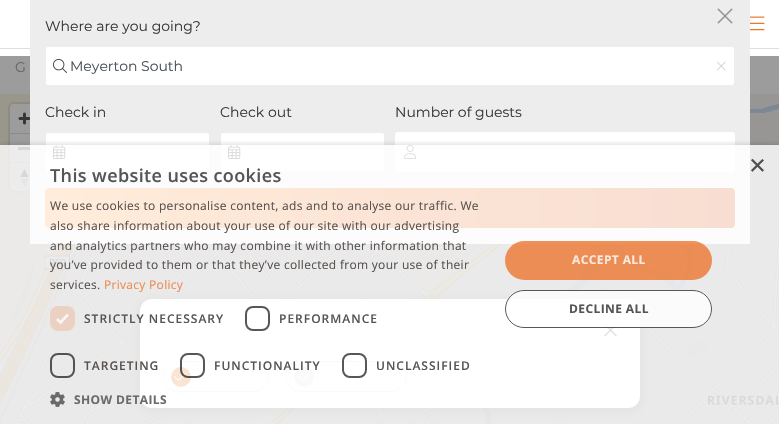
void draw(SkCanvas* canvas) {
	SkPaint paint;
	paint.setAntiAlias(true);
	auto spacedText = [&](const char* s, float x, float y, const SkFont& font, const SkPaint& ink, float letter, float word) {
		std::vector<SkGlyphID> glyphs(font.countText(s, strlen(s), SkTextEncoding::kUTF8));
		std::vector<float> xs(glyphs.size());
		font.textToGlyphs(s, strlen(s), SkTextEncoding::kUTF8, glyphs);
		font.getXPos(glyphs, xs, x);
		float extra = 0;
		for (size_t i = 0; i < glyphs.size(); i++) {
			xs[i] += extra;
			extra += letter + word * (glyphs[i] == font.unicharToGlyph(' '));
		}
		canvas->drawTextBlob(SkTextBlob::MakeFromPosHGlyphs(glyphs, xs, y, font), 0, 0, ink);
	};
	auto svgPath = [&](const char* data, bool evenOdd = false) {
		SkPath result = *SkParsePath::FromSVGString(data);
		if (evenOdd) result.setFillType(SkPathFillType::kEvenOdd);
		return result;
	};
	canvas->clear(0xffffffff);
	paint.setColor(0xff9c9c9c);
	canvas->drawRect(SkRect::MakeXYWH(0, 56, 779, 38), paint);
	paint.setColor(0xffdedede);
	canvas->drawRect(SkRect::MakeXYWH(0, 48, 779, 1), paint);
	SkFont f1(fontMgr->matchFamilyStyle("Montserrat", SkFontStyle::Normal()), 14);
	f1.setSubpixel(true);
	paint.setColor(0xff656565);
	canvas->drawString("G", 15, 72, f1, paint);
	canvas->drawImageRect(SkImages::DeferredFromEncodedData(SkData::MakeFromFileName("img7.png")), SkRect::MakeXYWH(0, 94, 779, 330), SkSamplingOptions());
	paint.setStroke(true);
	paint.setStrokeWidth(2);
	paint.setColor(0x1a1c1c1c);
	canvas->drawRoundRect(SkRect::MakeXYWH(9, 103, 31, 89), 5, 5, paint);
	paint.setStroke(false);
	paint.setColor(0xff9c9c9c);
	canvas->drawRoundRect(SkRect::MakeXYWH(10, 104, 29, 87), 4, 4, paint);
	paint.setColor(0xff363636);
	canvas->drawRect(SkRect::MakeXYWH(18, 147, 13, 3), paint);
	paint.setColor(0xffededed);
	canvas->drawRect(SkRect::MakeXYWH(30, 0, 720, 244), paint);
	canvas->drawImageRect(SkImages::DeferredFromEncodedData(SkData::MakeFromFileName("img1.png")), SkRect::MakeXYWH(717, 8, 16, 16), SkSamplingOptions());
	paint.setColor(0xff383838);
	canvas->drawString("Where are you going?", 45, 31, f1, paint);
	paint.setColor(0xffffffff);
	canvas->drawRoundRect(SkRect::MakeXYWH(46, 47, 688, 38), 2, 2, paint);
	canvas->drawImageRect(SkImages::DeferredFromEncodedData(SkData::MakeFromFileName("img2.png")), SkRect::MakeXYWH(53, 59, 14, 14), SkSamplingOptions());
	paint.setColor(0xff495057);
	canvas->drawString("Meyerton South", 70, 71, f1, paint);
	canvas->drawImageRect(SkImages::DeferredFromEncodedData(SkData::MakeFromFileName("img3.png")), SkRect::MakeXYWH(717, 61, 9, 10), SkSamplingOptions());
	paint.setColor(0xff383838);
	canvas->drawString("Check in", 45, 117, f1, paint);
	paint.setColor(0xffffffff);
	canvas->drawRoundRect(SkRect::MakeXYWH(46, 133, 163, 38), 2, 2, paint);
	canvas->drawImageRect(SkImages::DeferredFromEncodedData(SkData::MakeFromFileName("img4.png")), SkRect::MakeXYWH(53, 145, 13, 14), SkSamplingOptions());
	paint.setColor(0xff383838);
	canvas->drawString("Check out", 220, 117, f1, paint);
	paint.setColor(0xffffffff);
	canvas->drawRoundRect(SkRect::MakeXYWH(221, 133, 163, 38), 2, 2, paint);
	canvas->drawImageRect(SkImages::DeferredFromEncodedData(SkData::MakeFromFileName("img4.png")), SkRect::MakeXYWH(228, 145, 13, 14), SkSamplingOptions());
	paint.setColor(0xff383838);
	canvas->drawString("Number of guests", 395, 117, f1, paint);
	paint.setColor(0xffffffff);
	canvas->drawRoundRect(SkRect::MakeXYWH(395, 132, 340, 40), 3, 3, paint);
	canvas->drawImageRect(SkImages::DeferredFromEncodedData(SkData::MakeFromFileName("img5.png")), SkRect::MakeXYWH(404, 145, 13, 14), SkSamplingOptions());
	{
		const SkColor colors[] = {0xffffa048, 0xffec772d, 0xffd9581b};
		const float stops[] = {0, 0.5, 1};
		const SkPoint ends[] = {{45, 208}, {735, 208}};
		paint.setShader(SkGradientShader::MakeLinear(ends, colors, stops, 3, SkTileMode::kClamp));
		paint.setAlpha(255);
	}
	canvas->drawRoundRect(SkRect::MakeXYWH(45, 188, 690, 40), 4, 4, paint);
	canvas->drawImageRect(SkImages::DeferredFromEncodedData(SkData::MakeFromFileName("img6.png")), SkRect::MakeXYWH(750, 16, 15, 15), SkSamplingOptions());
	canvas->drawImageRect(SkImages::DeferredFromEncodedData(SkData::MakeFromFileName("img8.png")), SkRect::MakeXYWH(18, 112, 12, 13), SkSamplingOptions());
	paint.setShader(nullptr);
	paint.setColor(0xff8b8b8b);
	canvas->drawRect(SkRect::MakeXYWH(10, 133, 20, 1), paint);
	canvas->drawRect(SkRect::MakeXYWH(10, 162, 20, 1), paint);
	canvas->drawImageRect(SkImages::DeferredFromEncodedData(SkData::MakeFromFileName("img9.png")), SkRect::MakeXYWH(20, 169, 9, 18), SkSamplingOptions());
	paint.setColor(0x33000000);
	paint.setMaskFilter(SkMaskFilter::MakeBlur(kNormal_SkBlurStyle, 4));
	canvas->drawRoundRect(SkRect::MakeXYWH(136, 297, 508, 117), 16, 16, paint);
	paint.setMaskFilter(nullptr);
	paint.setColor(0xffffffff);
	canvas->drawRoundRect(SkRect::MakeXYWH(140, 299, 500, 109), 12, 12, paint);
	canvas->drawImageRect(SkImages::DeferredFromEncodedData(SkData::MakeFromFileName("img11.png")), SkRect::MakeXYWH(604, 323, 13, 14), SkSamplingOptions());
	paint.setStroke(true);
	paint.setStrokeWidth(1);
	paint.setColor(0xffe6e6e6);
	canvas->drawRoundRect(SkRect::MakeXYWH(162.5, 361.5, 106, 30), 15, 15, paint);
	paint.setStroke(false);
	paint.setColor(0xffec772d);
	canvas->drawCircle(181, 377, 10, paint);
	canvas->drawImageRect(SkImages::DeferredFromEncodedData(SkData::MakeFromFileName("img12.png")), SkRect::MakeXYWH(174, 372, 13, 9), SkSamplingOptions());
	paint.setStroke(true);
	paint.setColor(0xffe6e6e6);
	canvas->drawRoundRect(SkRect::MakeXYWH(285.5, 361.5, 121, 30), 15, 15, paint);
	paint.setStroke(false);
	canvas->drawCircle(304, 377, 10, paint);
	canvas->drawImageRect(SkImages::DeferredFromEncodedData(SkData::MakeFromFileName("img13.png")), SkRect::MakeXYWH(298, 372, 12, 9), SkSamplingOptions());
	canvas->save();
	canvas->clipRect(SkRect::MakeXYWH(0, 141, 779, 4));
	paint.setColor(0x47000000);
	paint.setMaskFilter(SkMaskFilter::MakeBlur(kNormal_SkBlurStyle, 4));
	canvas->drawRect(SkRect::MakeXYWH(1, 147, 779, 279), paint);
	paint.setMaskFilter(nullptr);
	canvas->restore();
	paint.setColor(0xccffffff);
	canvas->drawRect(SkRect::MakeXYWH(0, 145, 779, 279), paint);
	SkFont f2(fontMgr->matchFamilyStyle("Liberation Sans", SkFontStyle::Normal()), 29);
	f2.setSubpixel(true);
	paint.setColor(0xff4f4f4e);
	canvas->drawString("×", 749, 175, f2, paint);
	SkFont f3(fontMgr->matchFamilyStyle("Open Sans", SkFontStyle(600, SkFontStyle::kNormal_Width, SkFontStyle::kUpright_Slant)), 18);
	f3.setSubpixel(true);
	paint.setColor(0xff555555);
	spacedText("This website uses cookies", 50, 182, f3, paint, 0.4, 0);
	SkFont f4(fontMgr->matchFamilyStyle("Open Sans", SkFontStyle::Normal()), 12);
	f4.setSubpixel(true);
	paint.setColor(0xff57524f);
	spacedText("We use cookies to personalise content, ads and to analyse our traffic. We", 50, 210, f4, paint, 0.3, 0);
	spacedText("also share information about your use of our site with our advertising", 50, 230, f4, paint, 0.3, 0);
	spacedText("and analytics partners who may combine it with other information that", 50, 250, f4, paint, 0.3, 0);
	spacedText("you’ve provided to them or that they’ve collected from your use of their", 50, 269, f4, paint, 0.3, 0);
	spacedText("services.", 50, 289, f4, paint, 0.3, 0);
	paint.setColor(0xffeb8c54);
	spacedText("Privacy Policy", 104, 289, f4, paint, 0.3, 0);
	paint.setColor(0x36eb752e);
	canvas->drawRoundRect(SkRect::MakeXYWH(50, 306, 25, 25), 8, 8, paint);
	paint.setStroke(true);
	paint.setStrokeWidth(2.6);
	paint.setColor(0xccffffff);
	canvas->drawPath(svgPath("M57 319L60.5 322.5L68 314.5"), paint);
	SkFont f5(fontMgr->matchFamilyStyle("Open Sans", SkFontStyle(600, SkFontStyle::kNormal_Width, SkFontStyle::kUpright_Slant)), 12);
	f5.setSubpixel(true);
	paint.setStroke(false);
	paint.setColor(0xff555555);
	spacedText("STRICTLY NECESSARY", 84, 323, f5, paint, 1, 0);
	paint.setStroke(true);
	paint.setStrokeWidth(2);
	paint.setColor(0xcc2d2d2d);
	canvas->drawRoundRect(SkRect::MakeXYWH(246, 307, 23, 23), 7, 7, paint);
	paint.setStroke(false);
	paint.setColor(0xff555555);
	spacedText("PERFORMANCE", 279, 323, f5, paint, 1, 0);
	paint.setStroke(true);
	paint.setColor(0xcc2d2d2d);
	canvas->drawRoundRect(SkRect::MakeXYWH(51, 354, 23, 23), 7, 7, paint);
	paint.setStroke(false);
	paint.setColor(0xff57524f);
	spacedText("TARGETING", 84, 370, f5, paint, 1, 0);
	paint.setStroke(true);
	paint.setColor(0xcc2d2d2d);
	canvas->drawRoundRect(SkRect::MakeXYWH(181, 354, 23, 23), 7, 7, paint);
	paint.setStroke(false);
	paint.setColor(0xff555555);
	spacedText("FUNCTIONALITY", 214, 370, f5, paint, 1, 0);
	paint.setStroke(true);
	paint.setColor(0xcc2d2d2d);
	canvas->drawRoundRect(SkRect::MakeXYWH(343, 354, 23, 23), 7, 7, paint);
	paint.setStroke(false);
	paint.setColor(0xff555555);
	spacedText("UNCLASSIFIED", 376, 370, f5, paint, 1, 0);
	canvas->drawImageRect(SkImages::DeferredFromEncodedData(SkData::MakeFromFileName("img10.png")), SkRect::MakeXYWH(50, 392, 15, 15), SkSamplingOptions());
	SkFont f6(fontMgr->matchFamilyStyle("Open Sans", SkFontStyle::Bold()), 12);
	f6.setSubpixel(true);
	paint.setColor(0xff6b6b6b);
	spacedText("SHOW DETAILS", 74, 404, f6, paint, 0.4, 0);
	paint.setColor(0xcceb752e);
	canvas->drawRoundRect(SkRect::MakeXYWH(505, 241, 207, 39), 19.5, 19.5, paint);
	paint.setColor(0xfffbe8dd);
	spacedText("ACCEPT ALL", 572, 264, f6, paint, 0.4, 0);
	paint.setColor(0xccffffff);
	canvas->drawRoundRect(SkRect::MakeXYWH(505, 290, 207, 38), 19, 19, paint);
	paint.setStroke(true);
	paint.setStrokeWidth(1);
	paint.setColor(0xcc2d2d2d);
	canvas->drawRoundRect(SkRect::MakeXYWH(505.5, 290.5, 206, 37), 18.5, 18.5, paint);
	paint.setStroke(false);
	paint.setColor(0xff555555);
	spacedText("DECLINE ALL", 569, 313, f6, paint, 0.4, 0);
}
